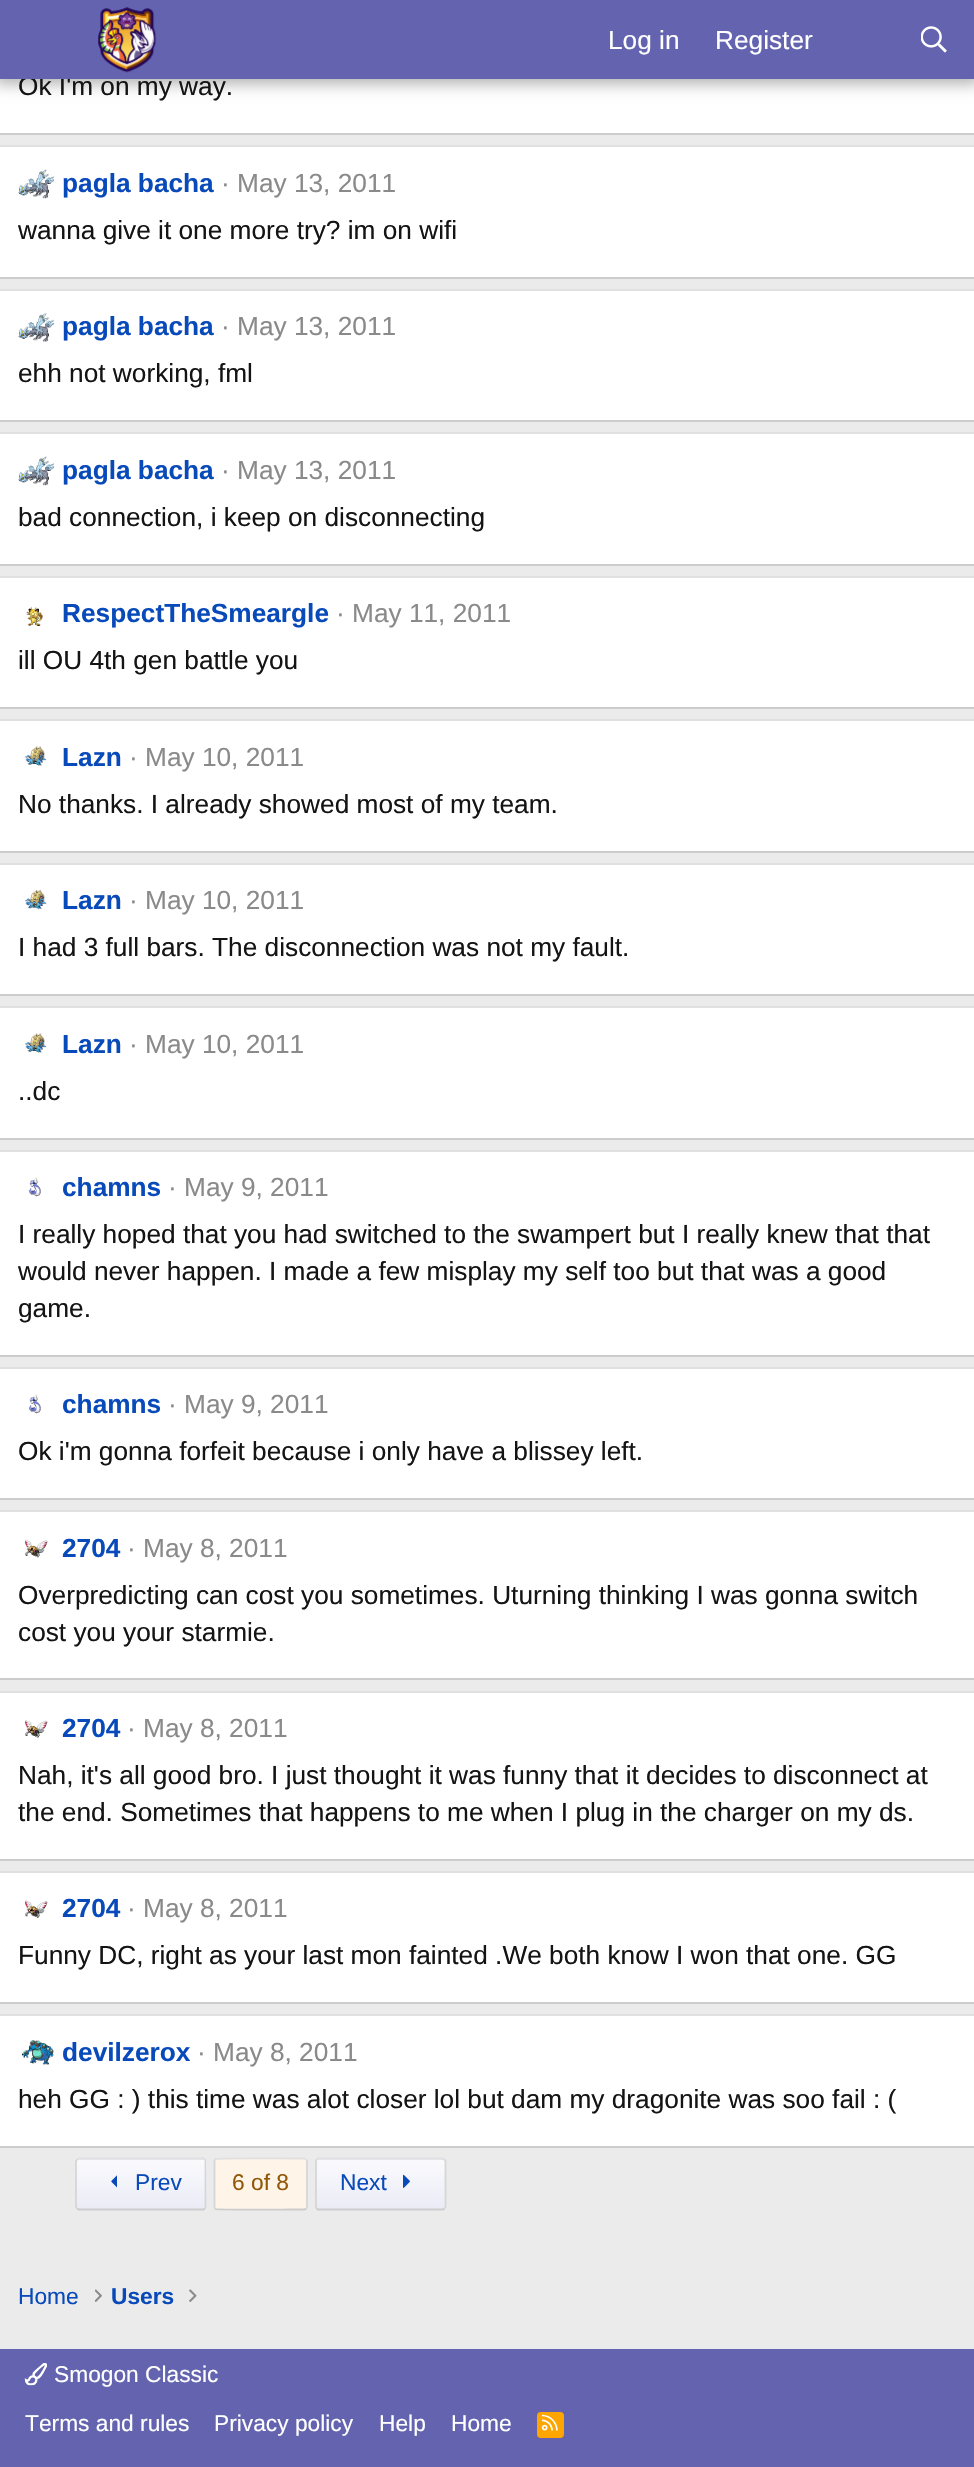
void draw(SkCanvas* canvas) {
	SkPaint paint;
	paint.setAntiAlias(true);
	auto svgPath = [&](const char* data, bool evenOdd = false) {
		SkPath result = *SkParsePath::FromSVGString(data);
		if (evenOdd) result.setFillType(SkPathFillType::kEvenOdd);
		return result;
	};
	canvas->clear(0xffebebeb);
	paint.setColor(0xffffffff);
	canvas->drawRect(SkRect::MakeXYWH(0, 79, 974, 54), paint);
	paint.setColor(0x4d000000);
	paint.setMaskFilter(SkMaskFilter::MakeBlur(kNormal_SkBlurStyle, 7));
	canvas->drawRect(SkRect::MakeXYWH(-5, -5, 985, 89), paint);
	paint.setMaskFilter(nullptr);
	SkFont f1(fontMgr->matchFamilyStyle("Liberation Sans", SkFontStyle::Normal()), 26.25);
	f1.setSubpixel(true);
	paint.setColor(0xff141414);
	canvas->drawString("Ok I'm on my way.", 18, 95, f1, paint);
	paint.setColor(0xff6363b0);
	canvas->drawRect(SkRect::MakeXYWH(0, 0, 974, 79), paint);
	canvas->drawImageRect(SkImages::DeferredFromEncodedData(SkData::MakeFromFileName("img1.png")), SkRect::MakeXYWH(98, 7, 59, 66), SkSamplingOptions());
	paint.setColor(0xffffffff);
	canvas->drawString("Log in", 608, 49, f1, paint);
	canvas->drawString("Register", 715, 49, f1, paint);
	canvas->drawImageRect(SkImages::DeferredFromEncodedData(SkData::MakeFromFileName("img2.png")), SkRect::MakeXYWH(921, 26, 26, 27), SkSamplingOptions());
	paint.setColor(0xffcccccc);
	canvas->drawRect(SkRect::MakeXYWH(0, 133, 974, 2), paint);
	paint.setColor(0xffffffff);
	canvas->drawRect(SkRect::MakeXYWH(0, 147, 974, 130), paint);
	paint.setColor(0xffe0e0e0);
	canvas->drawRect(SkRect::MakeXYWH(0, 145, 974, 2), paint);
	paint.setColor(0xffcccccc);
	canvas->drawRect(SkRect::MakeXYWH(0, 277, 974, 2), paint);
	canvas->drawImageRect(SkImages::DeferredFromEncodedData(SkData::MakeFromFileName("img3.png")), SkRect::MakeXYWH(18, 169, 37, 30), SkSamplingOptions());
	SkFont f2(fontMgr->matchFamilyStyle("Liberation Sans", SkFontStyle::Bold()), 26.25);
	f2.setSubpixel(true);
	paint.setColor(0xff094aba);
	canvas->drawString("pagla bacha", 62, 192, f2, paint);
	paint.setColor(0xff8a8a8a);
	canvas->drawString("· May 13, 2011", 221, 192, f1, paint);
	paint.setColor(0xff141414);
	canvas->drawString("wanna give it one more try? im on wifi", 18, 239, f1, paint);
	paint.setColor(0xffffffff);
	canvas->drawRect(SkRect::MakeXYWH(0, 291, 974, 129), paint);
	paint.setColor(0xffe0e0e0);
	canvas->drawRect(SkRect::MakeXYWH(0, 289, 974, 2), paint);
	paint.setColor(0xffcccccc);
	canvas->drawRect(SkRect::MakeXYWH(0, 420, 974, 2), paint);
	canvas->drawImageRect(SkImages::DeferredFromEncodedData(SkData::MakeFromFileName("img4.png")), SkRect::MakeXYWH(18, 313, 37, 29), SkSamplingOptions());
	paint.setColor(0xff094aba);
	canvas->drawString("pagla bacha", 62, 335, f2, paint);
	paint.setColor(0xff8a8a8a);
	canvas->drawString("· May 13, 2011", 221, 335, f1, paint);
	paint.setColor(0xff141414);
	canvas->drawString("ehh not working, fml", 18, 382, f1, paint);
	paint.setColor(0xffffffff);
	canvas->drawRect(SkRect::MakeXYWH(0, 434, 974, 130), paint);
	paint.setColor(0xffe0e0e0);
	canvas->drawRect(SkRect::MakeXYWH(0, 432, 974, 2), paint);
	paint.setColor(0xffcccccc);
	canvas->drawRect(SkRect::MakeXYWH(0, 564, 974, 2), paint);
	canvas->drawImageRect(SkImages::DeferredFromEncodedData(SkData::MakeFromFileName("img3.png")), SkRect::MakeXYWH(18, 456, 37, 30), SkSamplingOptions());
	paint.setColor(0xff094aba);
	canvas->drawString("pagla bacha", 62, 479, f2, paint);
	paint.setColor(0xff8a8a8a);
	canvas->drawString("· May 13, 2011", 221, 479, f1, paint);
	paint.setColor(0xff141414);
	canvas->drawString("bad connection, i keep on disconnecting", 18, 526, f1, paint);
	paint.setColor(0xffffffff);
	canvas->drawRect(SkRect::MakeXYWH(0, 578, 974, 129), paint);
	paint.setColor(0xffe0e0e0);
	canvas->drawRect(SkRect::MakeXYWH(0, 576, 974, 2), paint);
	paint.setColor(0xffcccccc);
	canvas->drawRect(SkRect::MakeXYWH(0, 707, 974, 2), paint);
	canvas->drawImageRect(SkImages::DeferredFromEncodedData(SkData::MakeFromFileName("img5.png")), SkRect::MakeXYWH(26, 606, 17, 20), SkSamplingOptions());
	paint.setColor(0xff094aba);
	canvas->drawString("RespectTheSmeargle", 62, 622, f2, paint);
	paint.setColor(0xff8a8a8a);
	canvas->drawString("· May 11, 2011", 336, 622, f1, paint);
	paint.setColor(0xff141414);
	canvas->drawString("ill OU 4th gen battle you", 18, 669, f1, paint);
	paint.setColor(0xffffffff);
	canvas->drawRect(SkRect::MakeXYWH(0, 721, 974, 130), paint);
	paint.setColor(0xffe0e0e0);
	canvas->drawRect(SkRect::MakeXYWH(0, 719, 974, 2), paint);
	paint.setColor(0xffcccccc);
	canvas->drawRect(SkRect::MakeXYWH(0, 851, 974, 2), paint);
	canvas->drawImageRect(SkImages::DeferredFromEncodedData(SkData::MakeFromFileName("img6.png")), SkRect::MakeXYWH(25, 746, 22, 20), SkSamplingOptions());
	paint.setColor(0xff094aba);
	canvas->drawString("Lazn", 62, 766, f2, paint);
	paint.setColor(0xff8a8a8a);
	canvas->drawString("· May 10, 2011", 129, 766, f1, paint);
	paint.setColor(0xff141414);
	canvas->drawString("No thanks. I already showed most of my team.", 18, 813, f1, paint);
	paint.setColor(0xffffffff);
	canvas->drawRect(SkRect::MakeXYWH(0, 865, 974, 129), paint);
	paint.setColor(0xffe0e0e0);
	canvas->drawRect(SkRect::MakeXYWH(0, 863, 974, 2), paint);
	paint.setColor(0xffcccccc);
	canvas->drawRect(SkRect::MakeXYWH(0, 994, 974, 2), paint);
	canvas->drawImageRect(SkImages::DeferredFromEncodedData(SkData::MakeFromFileName("img7.png")), SkRect::MakeXYWH(25, 890, 22, 19), SkSamplingOptions());
	paint.setColor(0xff094aba);
	canvas->drawString("Lazn", 62, 909, f2, paint);
	paint.setColor(0xff8a8a8a);
	canvas->drawString("· May 10, 2011", 129, 909, f1, paint);
	paint.setColor(0xff141414);
	canvas->drawString("I had 3 full bars. The disconnection was not my fault.", 18, 956, f1, paint);
	paint.setColor(0xffffffff);
	canvas->drawRect(SkRect::MakeXYWH(0, 1008, 974, 130), paint);
	paint.setColor(0xffe0e0e0);
	canvas->drawRect(SkRect::MakeXYWH(0, 1006, 974, 2), paint);
	paint.setColor(0xffcccccc);
	canvas->drawRect(SkRect::MakeXYWH(0, 1138, 974, 2), paint);
	canvas->drawImageRect(SkImages::DeferredFromEncodedData(SkData::MakeFromFileName("img6.png")), SkRect::MakeXYWH(25, 1033, 22, 20), SkSamplingOptions());
	paint.setColor(0xff094aba);
	canvas->drawString("Lazn", 62, 1053, f2, paint);
	paint.setColor(0xff8a8a8a);
	canvas->drawString("· May 10, 2011", 129, 1053, f1, paint);
	paint.setColor(0xff141414);
	canvas->drawString("..dc", 18, 1100, f1, paint);
	paint.setColor(0xffffffff);
	canvas->drawRect(SkRect::MakeXYWH(0, 1152, 974, 203), paint);
	paint.setColor(0xffe0e0e0);
	canvas->drawRect(SkRect::MakeXYWH(0, 1150, 974, 2), paint);
	paint.setColor(0xffcccccc);
	canvas->drawRect(SkRect::MakeXYWH(0, 1355, 974, 2), paint);
	canvas->drawImageRect(SkImages::DeferredFromEncodedData(SkData::MakeFromFileName("img8.png")), SkRect::MakeXYWH(29, 1177, 12, 20), SkSamplingOptions());
	paint.setColor(0xff094aba);
	canvas->drawString("chamns", 62, 1196, f2, paint);
	paint.setColor(0xff8a8a8a);
	canvas->drawString("· May 9, 2011", 168, 1196, f1, paint);
	paint.setColor(0xff141414);
	canvas->drawString("I really hoped that you had switched to the swampert but I really knew that that", 18, 1243, f1, paint);
	canvas->drawString("would never happen. I made a few misplay my self too but that was a good", 18, 1280, f1, paint);
	canvas->drawString("game.", 18, 1317, f1, paint);
	paint.setColor(0xffffffff);
	canvas->drawRect(SkRect::MakeXYWH(0, 1369, 974, 129), paint);
	paint.setColor(0xffe0e0e0);
	canvas->drawRect(SkRect::MakeXYWH(0, 1367, 974, 2), paint);
	paint.setColor(0xffcccccc);
	canvas->drawRect(SkRect::MakeXYWH(0, 1498, 974, 2), paint);
	canvas->drawImageRect(SkImages::DeferredFromEncodedData(SkData::MakeFromFileName("img8.png")), SkRect::MakeXYWH(29, 1394, 12, 20), SkSamplingOptions());
	paint.setColor(0xff094aba);
	canvas->drawString("chamns", 62, 1413, f2, paint);
	paint.setColor(0xff8a8a8a);
	canvas->drawString("· May 9, 2011", 168, 1413, f1, paint);
	paint.setColor(0xff141414);
	canvas->drawString("Ok i'm gonna forfeit because i only have a blissey left.", 18, 1460, f1, paint);
	paint.setColor(0xffffffff);
	canvas->drawRect(SkRect::MakeXYWH(0, 1512, 974, 166), paint);
	paint.setColor(0xffe0e0e0);
	canvas->drawRect(SkRect::MakeXYWH(0, 1510, 974, 2), paint);
	paint.setColor(0xffcccccc);
	canvas->drawRect(SkRect::MakeXYWH(0, 1678, 974, 2), paint);
	canvas->drawImageRect(SkImages::DeferredFromEncodedData(SkData::MakeFromFileName("img9.png")), SkRect::MakeXYWH(25, 1539, 23, 19), SkSamplingOptions());
	paint.setColor(0xff094aba);
	canvas->drawString("2704", 62, 1557, f2, paint);
	paint.setColor(0xff8a8a8a);
	canvas->drawString("· May 8, 2011", 127, 1557, f1, paint);
	paint.setColor(0xff141414);
	canvas->drawString("Overpredicting can cost you sometimes. Uturning thinking I was gonna switch", 18, 1604, f1, paint);
	canvas->drawString("cost you your starmie.", 18, 1641, f1, paint);
	paint.setColor(0xffffffff);
	canvas->drawRect(SkRect::MakeXYWH(0, 1693, 974, 166), paint);
	paint.setColor(0xffe0e0e0);
	canvas->drawRect(SkRect::MakeXYWH(0, 1691, 974, 2), paint);
	paint.setColor(0xffcccccc);
	canvas->drawRect(SkRect::MakeXYWH(0, 1859, 974, 2), paint);
	canvas->drawImageRect(SkImages::DeferredFromEncodedData(SkData::MakeFromFileName("img10.png")), SkRect::MakeXYWH(25, 1720, 23, 18), SkSamplingOptions());
	paint.setColor(0xff094aba);
	canvas->drawString("2704", 62, 1737, f2, paint);
	paint.setColor(0xff8a8a8a);
	canvas->drawString("· May 8, 2011", 127, 1737, f1, paint);
	paint.setColor(0xff141414);
	canvas->drawString("Nah, it's all good bro. I just thought it was funny that it decides to disconnect at", 18, 1784, f1, paint);
	canvas->drawString("the end. Sometimes that happens to me when I plug in the charger on my ds.", 18, 1821, f1, paint);
	paint.setColor(0xffffffff);
	canvas->drawRect(SkRect::MakeXYWH(0, 1873, 974, 129), paint);
	paint.setColor(0xffe0e0e0);
	canvas->drawRect(SkRect::MakeXYWH(0, 1871, 974, 2), paint);
	paint.setColor(0xffcccccc);
	canvas->drawRect(SkRect::MakeXYWH(0, 2002, 974, 2), paint);
	canvas->drawImageRect(SkImages::DeferredFromEncodedData(SkData::MakeFromFileName("img11.png")), SkRect::MakeXYWH(25, 1900, 23, 18), SkSamplingOptions());
	paint.setColor(0xff094aba);
	canvas->drawString("2704", 62, 1917, f2, paint);
	paint.setColor(0xff8a8a8a);
	canvas->drawString("· May 8, 2011", 127, 1917, f1, paint);
	paint.setColor(0xff141414);
	canvas->drawString("Funny DC, right as your last mon fainted .We both know I won that one. GG", 18, 1964, f1, paint);
	paint.setColor(0xffffffff);
	canvas->drawRect(SkRect::MakeXYWH(0, 2016, 974, 130), paint);
	paint.setColor(0xffe0e0e0);
	canvas->drawRect(SkRect::MakeXYWH(0, 2014, 974, 2), paint);
	paint.setColor(0xffcccccc);
	canvas->drawRect(SkRect::MakeXYWH(0, 2146, 974, 2), paint);
	canvas->drawImageRect(SkImages::DeferredFromEncodedData(SkData::MakeFromFileName("img12.png")), SkRect::MakeXYWH(22, 2040, 32, 25), SkSamplingOptions());
	paint.setColor(0xff094aba);
	canvas->drawString("devilzerox", 62, 2061, f2, paint);
	paint.setColor(0xff8a8a8a);
	canvas->drawString("· May 8, 2011", 197, 2061, f1, paint);
	paint.setColor(0xff141414);
	canvas->drawString("heh GG : ) this time was alot closer lol but dam my dragonite was soo fail : (", 18, 2108, f1, paint);
	canvas->save();
	canvas->clipPath(svgPath("M79 2158H203C205 2158 207 2160 207 2162V2206C207 2208 205 2210 203 2210H79C77 2210 75 2208 75 2206V2162C75 2160 77 2158 79 2158Z"), true);
	{
		const SkColor colors[] = {0xffebebf7, 0xfffafafd};
		const float stops[] = {0, 1};
		const SkPoint ends[] = {{141, 2160}, {141, 2111}};
		paint.setShader(SkGradientShader::MakeLinear(ends, colors, stops, 2, SkTileMode::kClamp));
		paint.setAlpha(255);
	}
	canvas->drawRect(SkRect::MakeXYWH(75, 2158, 132, 2), paint);
	{
		const SkColor colors[] = {0xffebebf7, 0xfffafafd};
		const float stops[] = {0, 1};
		const SkPoint ends[] = {{141, 2209}, {141, 2160}};
		paint.setShader(SkGradientShader::MakeLinear(ends, colors, stops, 2, SkTileMode::kClamp));
		paint.setAlpha(255);
	}
	canvas->drawRect(SkRect::MakeXYWH(75, 2160, 132, 49), paint);
	canvas->restore();
	paint.setStroke(true);
	paint.setStrokeWidth(1.8);
	paint.setShader(nullptr);
	paint.setColor(0xffe0e0e0);
	canvas->drawPath(svgPath("M77 2159.5L79 2158.5H203.5L205 2159.5"), paint);
	paint.setColor(0xffd6d6d6);
	canvas->drawPath(svgPath("M205 2159.5L205.5 2161V2207L205 2208.5"), paint);
	paint.setColor(0xffcccccc);
	canvas->drawPath(svgPath("M205 2208.5L203.5 2209.5H99.5H79L77 2208.5"), paint);
	paint.setColor(0xffd6d6d6);
	canvas->drawPath(svgPath("M77 2208.5L76 2207V2161L77 2159.5"), paint);
	canvas->drawImageRect(SkImages::DeferredFromEncodedData(SkData::MakeFromFileName("img13.png")), SkRect::MakeXYWH(111, 2175, 6, 13), SkSamplingOptions());
	SkFont f3(fontMgr->matchFamilyStyle("Liberation Sans", SkFontStyle::Normal()), 22.75);
	f3.setSubpixel(true);
	paint.setStroke(false);
	paint.setColor(0xff094aba);
	canvas->drawString("Prev", 135, 2190, f3, paint);
	paint.setColor(0xfffef4e7);
	canvas->drawRoundRect(SkRect::MakeXYWH(214, 2158, 94, 52), 4, 4, paint);
	paint.setStroke(true);
	paint.setColor(0xffe0e0e0);
	canvas->drawPath(svgPath("M215 2159.5L215.5 2159C217.5 2158 282 2158.5 290 2158.5H304.5L306.5 2159.5"), paint);
	paint.setColor(0xffd6d6d6);
	canvas->drawPath(svgPath("M306.5 2159.5L307 2161V2207L306.5 2208.5"), paint);
	paint.setColor(0xffcccccc);
	canvas->drawPath(svgPath("M306.5 2208.5L304.5 2209.5H290C282 2209.5 217.5 2210 215.5 2209L215 2208.5"), paint);
	paint.setColor(0xffd6d6d6);
	canvas->drawPath(svgPath("M215 2208.5L214.5 2207V2161L215 2159.5"), paint);
	paint.setStroke(false);
	paint.setColor(0xff915808);
	canvas->drawString("6 of 8", 232, 2190, f3, paint);
	canvas->save();
	canvas->clipPath(svgPath("M319 2158H442C444 2158 446 2160 446 2162V2206C446 2208 444 2210 442 2210H319C317 2210 315 2208 315 2206V2162C315 2160 317 2158 319 2158Z"), true);
	{
		const SkColor colors[] = {0xffebebf7, 0xfffafafd};
		const float stops[] = {0, 1};
		const SkPoint ends[] = {{381, 2160}, {381, 2111}};
		paint.setShader(SkGradientShader::MakeLinear(ends, colors, stops, 2, SkTileMode::kClamp));
		paint.setAlpha(255);
	}
	canvas->drawRect(SkRect::MakeXYWH(315, 2158, 131, 2), paint);
	{
		const SkColor colors[] = {0xffebebf7, 0xfffafafd};
		const float stops[] = {0, 1};
		const SkPoint ends[] = {{381, 2209}, {381, 2160}};
		paint.setShader(SkGradientShader::MakeLinear(ends, colors, stops, 2, SkTileMode::kClamp));
		paint.setAlpha(255);
	}
	canvas->drawRect(SkRect::MakeXYWH(315, 2160, 131, 49), paint);
	canvas->restore();
	paint.setStroke(true);
	paint.setShader(nullptr);
	paint.setColor(0xffe0e0e0);
	canvas->drawPath(svgPath("M316.5 2159.5L318 2158.5H422H443L444.5 2159.5"), paint);
	paint.setColor(0xffd6d6d6);
	canvas->drawPath(svgPath("M444.5 2159.5L445.5 2161V2207L444.5 2208.5"), paint);
	paint.setColor(0xffcccccc);
	canvas->drawPath(svgPath("M444.5 2208.5L443 2209.5H318L316.5 2208.5"), paint);
	paint.setColor(0xffd6d6d6);
	canvas->drawPath(svgPath("M316.5 2208.5L316 2207V2161L316.5 2159.5"), paint);
	paint.setStroke(false);
	paint.setColor(0xff094aba);
	canvas->drawString("Next", 340, 2190, f3, paint);
	canvas->drawImageRect(SkImages::DeferredFromEncodedData(SkData::MakeFromFileName("img14.png")), SkRect::MakeXYWH(403, 2174, 7, 14), SkSamplingOptions());
	canvas->drawString("Home", 18, 2304, f3, paint);
	canvas->drawImageRect(SkImages::DeferredFromEncodedData(SkData::MakeFromFileName("img15.png")), SkRect::MakeXYWH(95, 2289, 7, 13), SkSamplingOptions());
	SkFont f4(fontMgr->matchFamilyStyle("Liberation Sans", SkFontStyle::Bold()), 22.75);
	f4.setSubpixel(true);
	canvas->drawString("Users", 111, 2304, f4, paint);
	canvas->drawImageRect(SkImages::DeferredFromEncodedData(SkData::MakeFromFileName("img16.png")), SkRect::MakeXYWH(189, 2289, 8, 13), SkSamplingOptions());
	paint.setColor(0xff6363b0);
	canvas->drawRect(SkRect::MakeXYWH(0, 2349, 974, 118), paint);
	canvas->drawImageRect(SkImages::DeferredFromEncodedData(SkData::MakeFromFileName("img17.png")), SkRect::MakeXYWH(24, 2363, 23, 23), SkSamplingOptions());
	paint.setColor(0xffffffff);
	canvas->drawString("Smogon Classic", 54, 2382, f3, paint);
	canvas->drawString("Terms and rules", 25, 2431, f3, paint);
	canvas->drawString("Privacy policy", 214, 2431, f3, paint);
	canvas->drawString("Help", 379, 2431, f3, paint);
	canvas->drawString("Home", 451, 2431, f3, paint);
	paint.setColor(0xffffa500);
	canvas->drawRoundRect(SkRect::MakeXYWH(537, 2412, 27, 26), 4, 4, paint);
	canvas->drawImageRect(SkImages::DeferredFromEncodedData(SkData::MakeFromFileName("img18.png")), SkRect::MakeXYWH(541, 2414, 17, 17), SkSamplingOptions());
}
